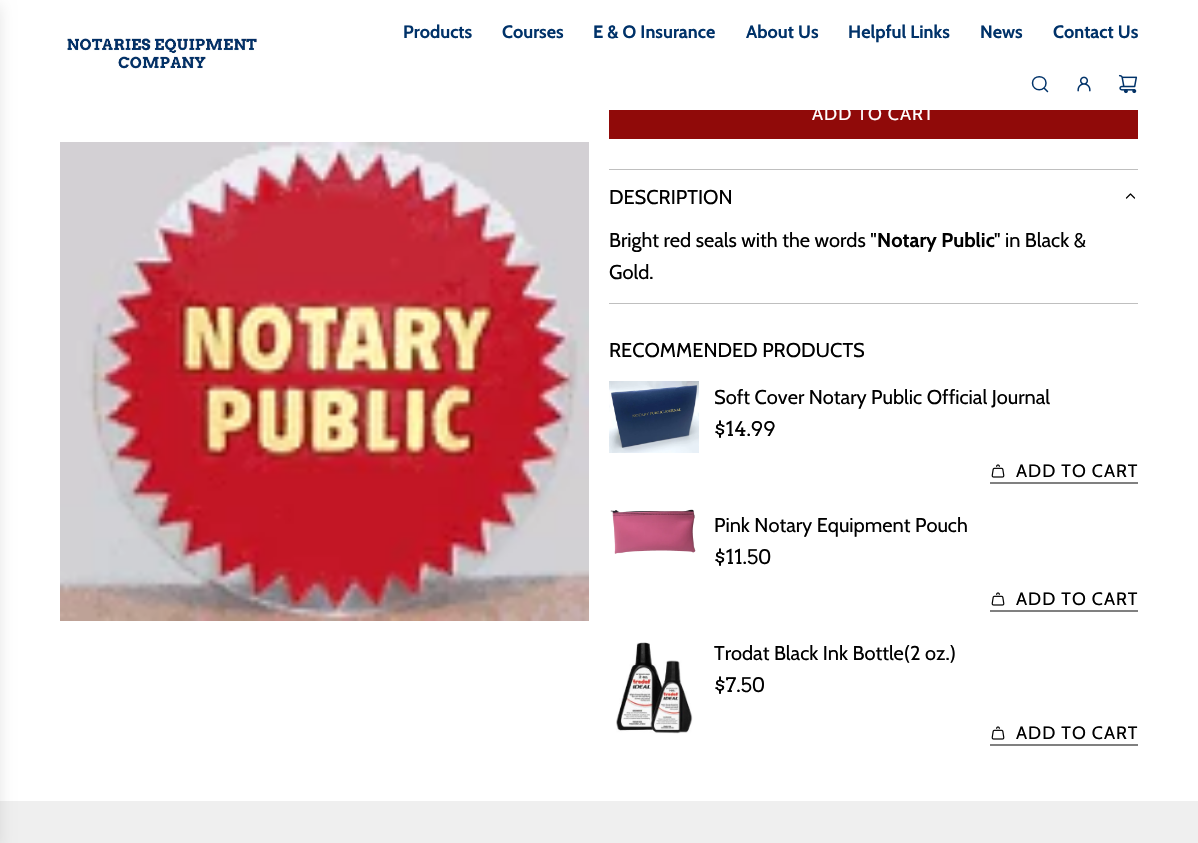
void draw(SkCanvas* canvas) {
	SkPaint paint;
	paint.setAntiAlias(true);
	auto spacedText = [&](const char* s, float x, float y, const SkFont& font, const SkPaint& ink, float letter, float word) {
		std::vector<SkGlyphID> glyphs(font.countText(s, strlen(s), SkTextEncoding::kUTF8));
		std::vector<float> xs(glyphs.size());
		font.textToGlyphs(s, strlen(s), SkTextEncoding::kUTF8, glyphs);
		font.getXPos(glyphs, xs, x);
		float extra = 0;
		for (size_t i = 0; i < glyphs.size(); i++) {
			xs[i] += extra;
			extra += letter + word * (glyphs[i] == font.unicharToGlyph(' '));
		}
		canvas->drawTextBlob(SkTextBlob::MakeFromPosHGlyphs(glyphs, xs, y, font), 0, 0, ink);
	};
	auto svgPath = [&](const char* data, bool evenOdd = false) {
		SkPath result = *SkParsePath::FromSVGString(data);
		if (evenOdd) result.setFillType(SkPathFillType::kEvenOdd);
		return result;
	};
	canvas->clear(0xffffffff);
	paint.setColor(0xffefefef);
	canvas->drawRect(SkRect::MakeXYWH(0, 801, 1198, 42), paint);
	paint.setColor(0x1a000000);
	paint.setMaskFilter(SkMaskFilter::MakeBlur(kNormal_SkBlurStyle, 7.5));
	canvas->drawRect(SkRect::MakeXYWH(-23, 5, 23, 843), paint);
	paint.setMaskFilter(nullptr);
	SkFont f1(fontMgr->matchFamilyStyle("Cabin", SkFontStyle::Bold()), 18);
	f1.setSubpixel(true);
	paint.setColor(0xff003269);
	canvas->drawString("Products", 403, 38, f1, paint);
	canvas->drawString("Courses", 502, 38, f1, paint);
	canvas->drawString("E & O Insurance", 593, 38, f1, paint);
	canvas->drawString("About Us", 746, 38, f1, paint);
	canvas->drawString("Helpful Links", 848, 38, f1, paint);
	canvas->drawString("News", 980, 38, f1, paint);
	canvas->drawString("Contact Us", 1053, 38, f1, paint);
	paint.setStroke(true);
	paint.setStrokeWidth(1.5);
	paint.setStrokeCap(SkPaint::kRound_Cap);
	paint.setStrokeJoin(SkPaint::kRound_Join);
	canvas->drawPath(svgPath("M1044 88L1047.5 91.5M1032.5 83C1032.5 92 1046 92 1046 83C1046 74.5 1032.5 74.5 1032.5 83Z"), paint);
	canvas->drawImageRect(SkImages::DeferredFromEncodedData(SkData::MakeFromFileName("img1.png")), SkRect::MakeXYWH(1077, 76, 14, 16), SkSamplingOptions());
	canvas->drawImageRect(SkImages::DeferredFromEncodedData(SkData::MakeFromFileName("img2.png")), SkRect::MakeXYWH(1118, 74, 20, 20), SkSamplingOptions());
	canvas->drawImageRect(SkImages::DeferredFromEncodedData(SkData::MakeFromFileName("img3.png")), SkRect::MakeXYWH(67, 38, 190, 31), SkSamplingOptions());
	canvas->drawImageRect(SkImages::DeferredFromEncodedData(SkData::MakeFromFileName("img4.png")), SkRect::MakeXYWH(60, 142, 529, 479), SkSamplingOptions());
	paint.setStroke(false);
	paint.setColor(0xff900a09);
	canvas->drawRect(SkRect::MakeXYWH(609, 110, 529, 29), paint);
	SkFont f2(fontMgr->matchFamilyStyle("Cabin", SkFontStyle::Normal()), 18);
	f2.setSubpixel(true);
	paint.setColor(0xffffffff);
	spacedText("ADD TO CART", 812, 120, f2, paint, 1, 0);
	paint.setColor(0xffbfbfbf);
	canvas->drawRect(SkRect::MakeXYWH(609, 169, 529, 1), paint);
	canvas->drawRect(SkRect::MakeXYWH(609, 303, 529, 1), paint);
	SkFont f3(fontMgr->matchFamilyStyle("Cabin", SkFontStyle::Normal()), 20);
	f3.setSubpixel(true);
	paint.setColor(0xff000000);
	canvas->drawString("DESCRIPTION", 609, 204, f3, paint);
	paint.setStroke(true);
	paint.setStrokeWidth(1.2);
	canvas->drawPath(svgPath("M1126.5 198L1130.5 194L1134.5 198"), paint);
	paint.setStroke(false);
	canvas->drawString("Bright red seals with the words \"", 609, 247, f3, paint);
	SkFont f4(fontMgr->matchFamilyStyle("Cabin", SkFontStyle::Bold()), 20);
	f4.setSubpixel(true);
	canvas->drawString("Notary Public", 877, 247, f4, paint);
	canvas->drawString("\" in Black &", 994, 247, f3, paint);
	canvas->drawString("Gold.", 609, 279, f3, paint);
	canvas->drawString("RECOMMENDED PRODUCTS", 609, 357, f3, paint);
	canvas->drawImageRect(SkImages::DeferredFromEncodedData(SkData::MakeFromFileName("img5.png")), SkRect::MakeXYWH(609, 381, 90, 72), SkSamplingOptions());
	canvas->drawString("Soft Cover Notary Public Official Journal", 714, 404, f3, paint);
	SkFont f5(fontMgr->matchFamilyStyle("Arvo", SkFontStyle::Normal()), 20);
	f5.setSubpixel(true);
	canvas->drawString("$14.99", 714, 436, f5, paint);
	paint.setColor(0xff808080);
	canvas->drawRect(SkRect::MakeXYWH(990, 482, 148, 2), paint);
	canvas->drawImageRect(SkImages::DeferredFromEncodedData(SkData::MakeFromFileName("img6.png")), SkRect::MakeXYWH(991, 464, 14, 14), SkSamplingOptions());
	paint.setColor(0xff000000);
	spacedText("ADD TO CART", 1016, 477, f2, paint, 1, 0);
	canvas->drawImageRect(SkImages::DeferredFromEncodedData(SkData::MakeFromFileName("img7.png")), SkRect::MakeXYWH(610, 509, 86, 45), SkSamplingOptions());
	canvas->drawString("Pink Notary Equipment Pouch", 714, 532, f3, paint);
	canvas->drawString("$11.50", 714, 564, f5, paint);
	paint.setColor(0xff808080);
	canvas->drawRect(SkRect::MakeXYWH(990, 610, 148, 2), paint);
	canvas->drawImageRect(SkImages::DeferredFromEncodedData(SkData::MakeFromFileName("img6.png")), SkRect::MakeXYWH(991, 592, 14, 14), SkSamplingOptions());
	paint.setColor(0xff000000);
	spacedText("ADD TO CART", 1016, 605, f2, paint, 1, 0);
	canvas->drawImageRect(SkImages::DeferredFromEncodedData(SkData::MakeFromFileName("img8.png")), SkRect::MakeXYWH(616, 642, 77, 92), SkSamplingOptions());
	canvas->drawString("Trodat Black Ink Bottle(2 oz.)", 714, 660, f3, paint);
	canvas->drawString("$7.50", 714, 692, f5, paint);
	paint.setColor(0xff808080);
	canvas->drawRect(SkRect::MakeXYWH(990, 744, 148, 2), paint);
	canvas->drawImageRect(SkImages::DeferredFromEncodedData(SkData::MakeFromFileName("img6.png")), SkRect::MakeXYWH(991, 726, 14, 14), SkSamplingOptions());
	paint.setColor(0xff000000);
	spacedText("ADD TO CART", 1016, 739, f2, paint, 1, 0);
}
